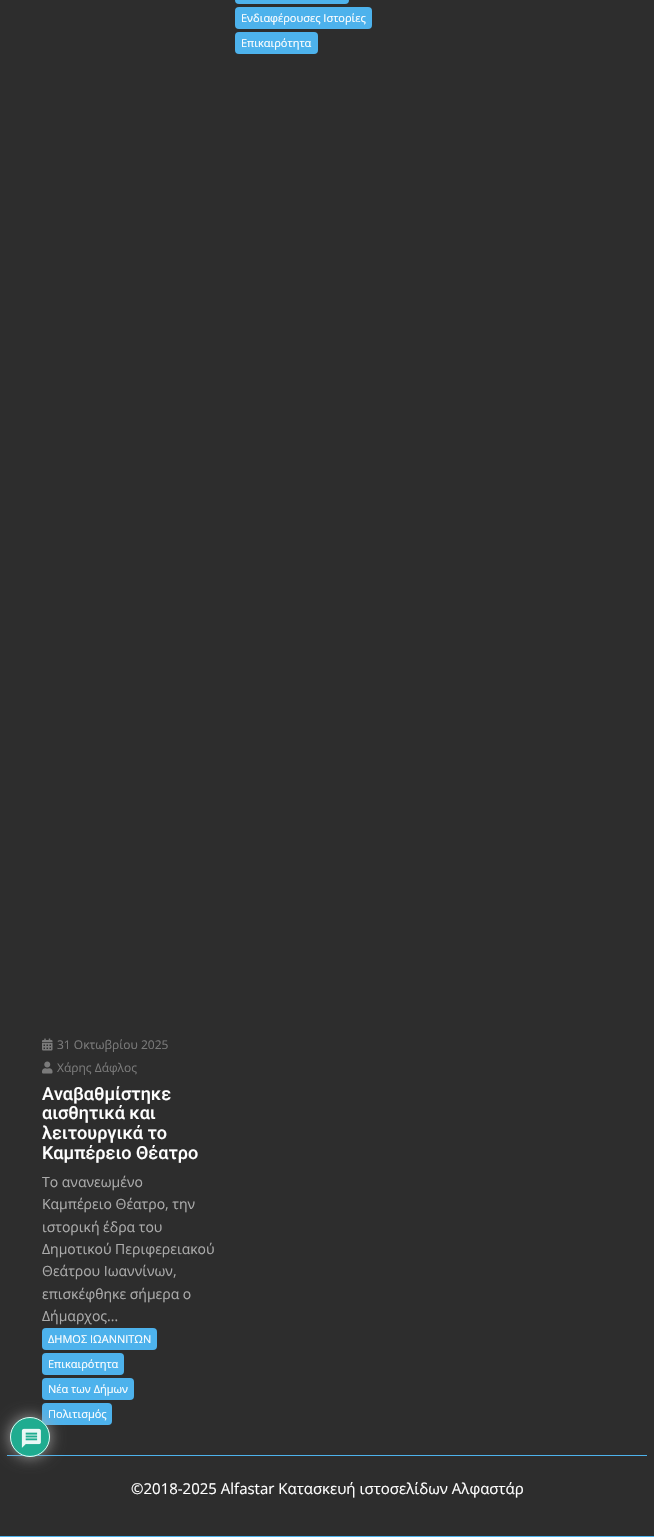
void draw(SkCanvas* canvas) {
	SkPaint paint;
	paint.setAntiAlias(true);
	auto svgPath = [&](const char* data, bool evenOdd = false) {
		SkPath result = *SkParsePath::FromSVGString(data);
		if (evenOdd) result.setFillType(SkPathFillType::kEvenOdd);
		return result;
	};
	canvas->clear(0xff2d2d2d);
	paint.setColor(0xff4db2ec);
	canvas->drawRoundRect(SkRect::MakeXYWH(42, 1378, 92, 22), 4, 4, paint);
	canvas->drawRoundRect(SkRect::MakeXYWH(42, 1403, 70, 22), 4, 4, paint);
	canvas->drawRect(SkRect::MakeXYWH(7, 1455, 640, 1), paint);
	canvas->save();
	canvas->clipPath(svgPath("M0 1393H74V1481H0ZM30 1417C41 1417 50 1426 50 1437C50 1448 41 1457 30 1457C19 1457 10 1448 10 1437C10 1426 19 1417 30 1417Z", true), true);
	paint.setColor(0xe6aaaaaa);
	paint.setMaskFilter(SkMaskFilter::MakeBlur(kNormal_SkBlurStyle, 7.5));
	canvas->drawRoundRect(SkRect::MakeXYWH(10, 1417, 40, 40), 20, 20, paint);
	paint.setMaskFilter(nullptr);
	canvas->restore();
	SkFont f1(fontMgr->matchFamilyStyle("Open Sans", SkFontStyle::Normal()), 11);
	f1.setSubpixel(true);
	paint.setColor(0xffffffff);
	canvas->drawString("Πολιτισμός", 48, 1418, f1, paint);
	paint.setColor(0xe61db99a);
	canvas->drawCircle(30, 1437, 20, paint);
	paint.setStroke(true);
	paint.setStrokeWidth(1);
	paint.setColor(0xe6ffffff);
	canvas->drawCircle(30, 1437, 19.5, paint);
	canvas->drawImageRect(SkImages::DeferredFromEncodedData(SkData::MakeFromFileName("img1.png")), SkRect::MakeXYWH(21, 1428, 20, 20), SkSamplingOptions());
	paint.setStroke(false);
	paint.setColor(0xff4db2ec);
	canvas->drawRect(SkRect::MakeXYWH(0, 1536, 654, 1), paint);
	canvas->drawRoundRect(SkRect::MakeXYWH(235, -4, 114, 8), 4, 4, paint);
	canvas->drawRoundRect(SkRect::MakeXYWH(235, 7, 137, 22), 4, 4, paint);
	paint.setColor(0xffffffff);
	canvas->drawString("Ενδιαφέρουσες Ιστορίες", 241, 22, f1, paint);
	paint.setColor(0xff4db2ec);
	canvas->drawRoundRect(SkRect::MakeXYWH(235, 32, 83, 22), 4, 4, paint);
	paint.setColor(0xffffffff);
	canvas->drawString("Επικαιρότητα", 241, 47, f1, paint);
	canvas->drawImageRect(SkImages::DeferredFromEncodedData(SkData::MakeFromFileName("img2.png")), SkRect::MakeXYWH(42, 1038, 11, 13), SkSamplingOptions());
	SkFont f2(fontMgr->matchFamilyStyle("Open Sans", SkFontStyle::Normal()), 12);
	f2.setSubpixel(true);
	paint.setColor(0xff7a7a7a);
	canvas->drawString("31 Οκτωβρίου 2025", 57, 1049, f2, paint);
	canvas->drawImageRect(SkImages::DeferredFromEncodedData(SkData::MakeFromFileName("img3.png")), SkRect::MakeXYWH(42, 1061, 11, 13), SkSamplingOptions());
	canvas->drawString("Χάρης Δάφλος", 57, 1072, f2, paint);
	SkFont f3(fontMgr->matchFamilyStyle("Roboto", SkFontStyle(500, SkFontStyle::kNormal_Width, SkFontStyle::kUpright_Slant)), 18);
	f3.setSubpixel(true);
	paint.setColor(0xffffffff);
	canvas->drawString("Αναβαθμίστηκε", 42, 1100, f3, paint);
	canvas->drawString("αισθητικά και", 42, 1119, f3, paint);
	canvas->drawString("λειτουργικά το", 42, 1139, f3, paint);
	canvas->drawString("Καμπέρειο Θέατρο", 42, 1159, f3, paint);
	SkFont f4(fontMgr->matchFamilyStyle("Open Sans", SkFontStyle::Normal()), 14);
	f4.setSubpixel(true);
	paint.setColor(0xffababab);
	canvas->drawString("Το ανανεωμένο", 42, 1187, f4, paint);
	canvas->drawString("Καμπέρειο Θέατρο, την", 42, 1209, f4, paint);
	canvas->drawString("ιστορική έδρα του", 42, 1232, f4, paint);
	canvas->drawString("Δημοτικού Περιφερειακού", 42, 1254, f4, paint);
	canvas->drawString("Θεάτρου Ιωαννίνων,", 42, 1276, f4, paint);
	canvas->drawString("επισκέφθηκε σήμερα ο", 42, 1299, f4, paint);
	canvas->drawString("Δήμαρχος...", 42, 1321, f4, paint);
	paint.setColor(0xff4db2ec);
	canvas->drawRoundRect(SkRect::MakeXYWH(42, 1328, 115, 22), 4, 4, paint);
	paint.setColor(0xffffffff);
	canvas->drawString("ΔΗΜΟΣ ΙΩΑΝΝΙΤΩΝ", 48, 1343, f1, paint);
	paint.setColor(0xff4db2ec);
	canvas->drawRoundRect(SkRect::MakeXYWH(42, 1353, 82, 22), 4, 4, paint);
	paint.setColor(0xffffffff);
	canvas->drawString("Επικαιρότητα", 48, 1368, f1, paint);
	canvas->drawString("Νέα των Δήμων", 48, 1393, f1, paint);
	SkFont f5(fontMgr->matchFamilyStyle("Open Sans", SkFontStyle::Normal()), 15);
	f5.setSubpixel(true);
	canvas->drawString("©2018-2025 Alfastar Κατασκευή ιστοσελίδων Αλφαστάρ", 131, 1494, f5, paint);
}
